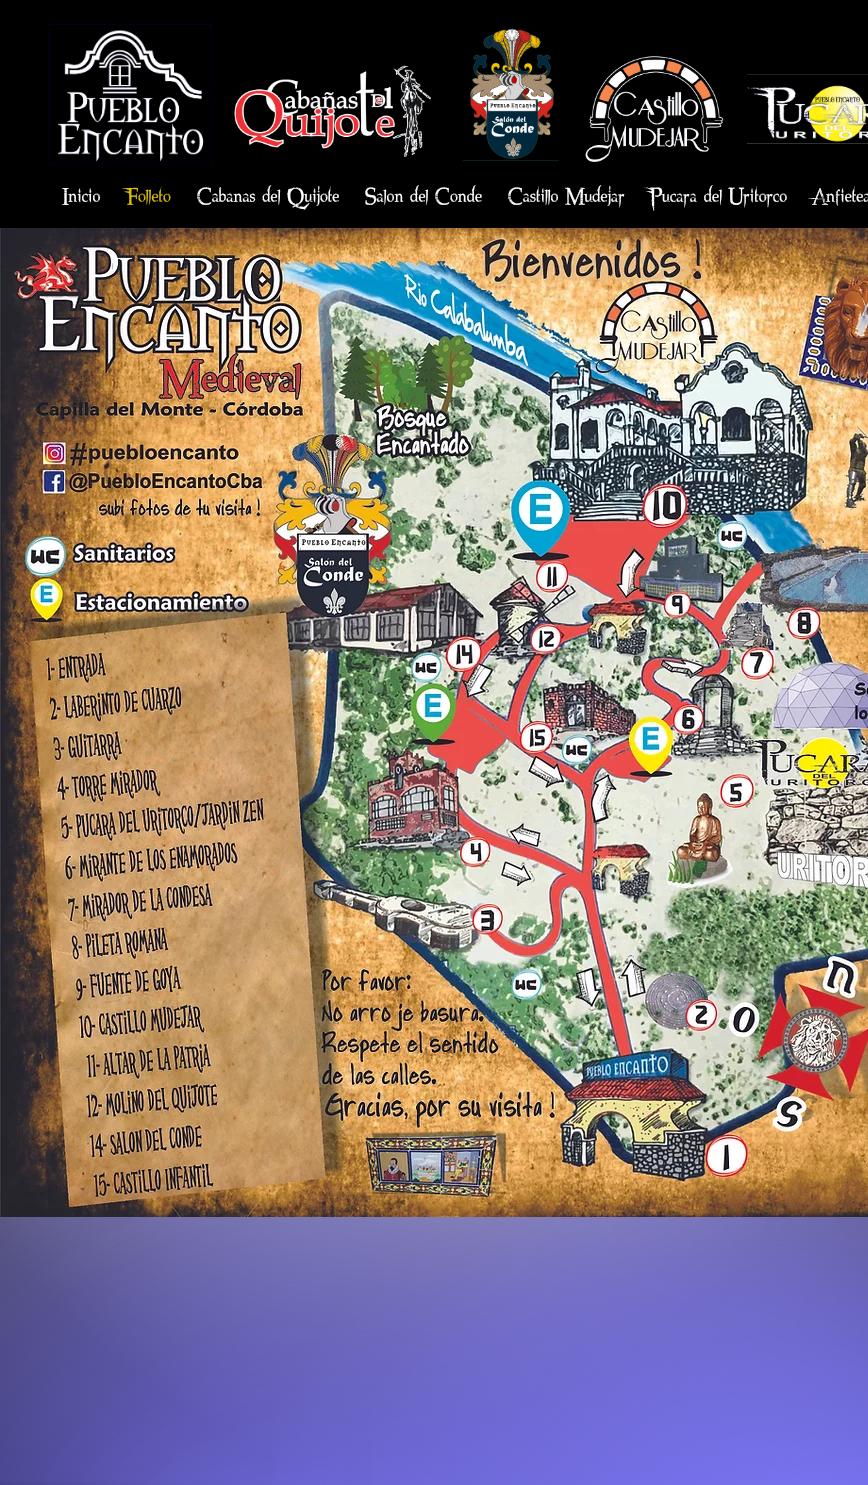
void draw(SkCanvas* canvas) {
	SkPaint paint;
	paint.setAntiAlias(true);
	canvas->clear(0xff000000);
	canvas->drawImageRect(SkImages::DeferredFromEncodedData(SkData::MakeFromFileName("img1.png")), SkRect::MakeXYWH(49, 24, 163, 141), SkSamplingOptions());
	canvas->drawImageRect(SkImages::DeferredFromEncodedData(SkData::MakeFromFileName("img2.png")), SkRect::MakeXYWH(232, 65, 199, 92), SkSamplingOptions());
	canvas->drawImageRect(SkImages::DeferredFromEncodedData(SkData::MakeFromFileName("img3.png")), SkRect::MakeXYWH(463, 28, 96, 133), SkSamplingOptions());
	canvas->drawImageRect(SkImages::DeferredFromEncodedData(SkData::MakeFromFileName("img4.png")), SkRect::MakeXYWH(585, 56, 139, 106), SkSamplingOptions());
	canvas->drawImageRect(SkImages::DeferredFromEncodedData(SkData::MakeFromFileName("img5.png")), SkRect::MakeXYWH(747, 74, 121, 70), SkSamplingOptions());
	SkFont f1(fontMgr->matchFamilyStyle("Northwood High", SkFontStyle::Normal()), 22);
	f1.setSubpixel(true);
	paint.setColor(0xffffffff);
	canvas->drawString("Inicio", 62, 205, f1, paint);
	paint.setColor(0xffddc000);
	canvas->drawString("Folleto", 126, 205, f1, paint);
	paint.setColor(0xffffffff);
	canvas->drawString("Cabanas del Quijote", 197, 205, f1, paint);
	canvas->drawString("Salon del Conde", 365, 205, f1, paint);
	canvas->drawString("Castillo Mudejar", 508, 205, f1, paint);
	canvas->drawString("Pucara del Uritorco", 650, 205, f1, paint);
	canvas->drawString("Anfietea", 812, 205, f1, paint);
	canvas->drawImageRect(SkImages::DeferredFromEncodedData(SkData::MakeFromFileName("img6.png")), SkRect::MakeXYWH(0, 228, 868, 989), SkSamplingOptions());
	{
		const SkColor colors[] = {0xffffffff, 0xff000000};
		const float stops[] = {0, 0.7};
		paint.setShader(SkGradientShader::MakeRadial({605, 774}, 1091, colors, stops, 2, SkTileMode::kClamp));
		paint.setAlpha(255);
	}
	canvas->drawRect(SkRect::MakeXYWH(0, 1217, 868, 268), paint);
	{
		const SkColor colors[] = {0xffffffff, 0x00ffffff};
		const float stops[] = {0, 0.7};
		paint.setShader(SkGradientShader::MakeRadial({60, 411}, 1568, colors, stops, 2, SkTileMode::kClamp));
		paint.setAlpha(255);
	}
	canvas->drawRect(SkRect::MakeXYWH(0, 1217, 766, 265), paint);
	{
		const SkColor colors[] = {0xfc8079ff, 0x008079ff};
		const float stops[] = {0, 0.5};
		paint.setShader(SkGradientShader::MakeRadial({303, 1628}, 1555, colors, stops, 2, SkTileMode::kClamp));
		paint.setAlpha(255);
	}
	canvas->drawRect(SkRect::MakeXYWH(0, 1217, 868, 268), paint);
	{
		const SkColor colors[] = {0xff8079ff, 0x008079ff};
		const float stops[] = {0, 0.35};
		paint.setShader(SkGradientShader::MakeRadial({907, 1643}, 1680, colors, stops, 2, SkTileMode::kClamp));
		paint.setAlpha(255);
	}
	canvas->drawRect(SkRect::MakeXYWH(371, 1217, 497, 268), paint);
	{
		const SkColor colors[] = {0xff8079ff, 0x008079ff};
		const float stops[] = {0, 0.35};
		paint.setShader(SkGradientShader::MakeRadial({784, 1682}, 1652, colors, stops, 2, SkTileMode::kClamp));
		paint.setAlpha(255);
	}
	canvas->drawRect(SkRect::MakeXYWH(273, 1217, 595, 268), paint);
}
